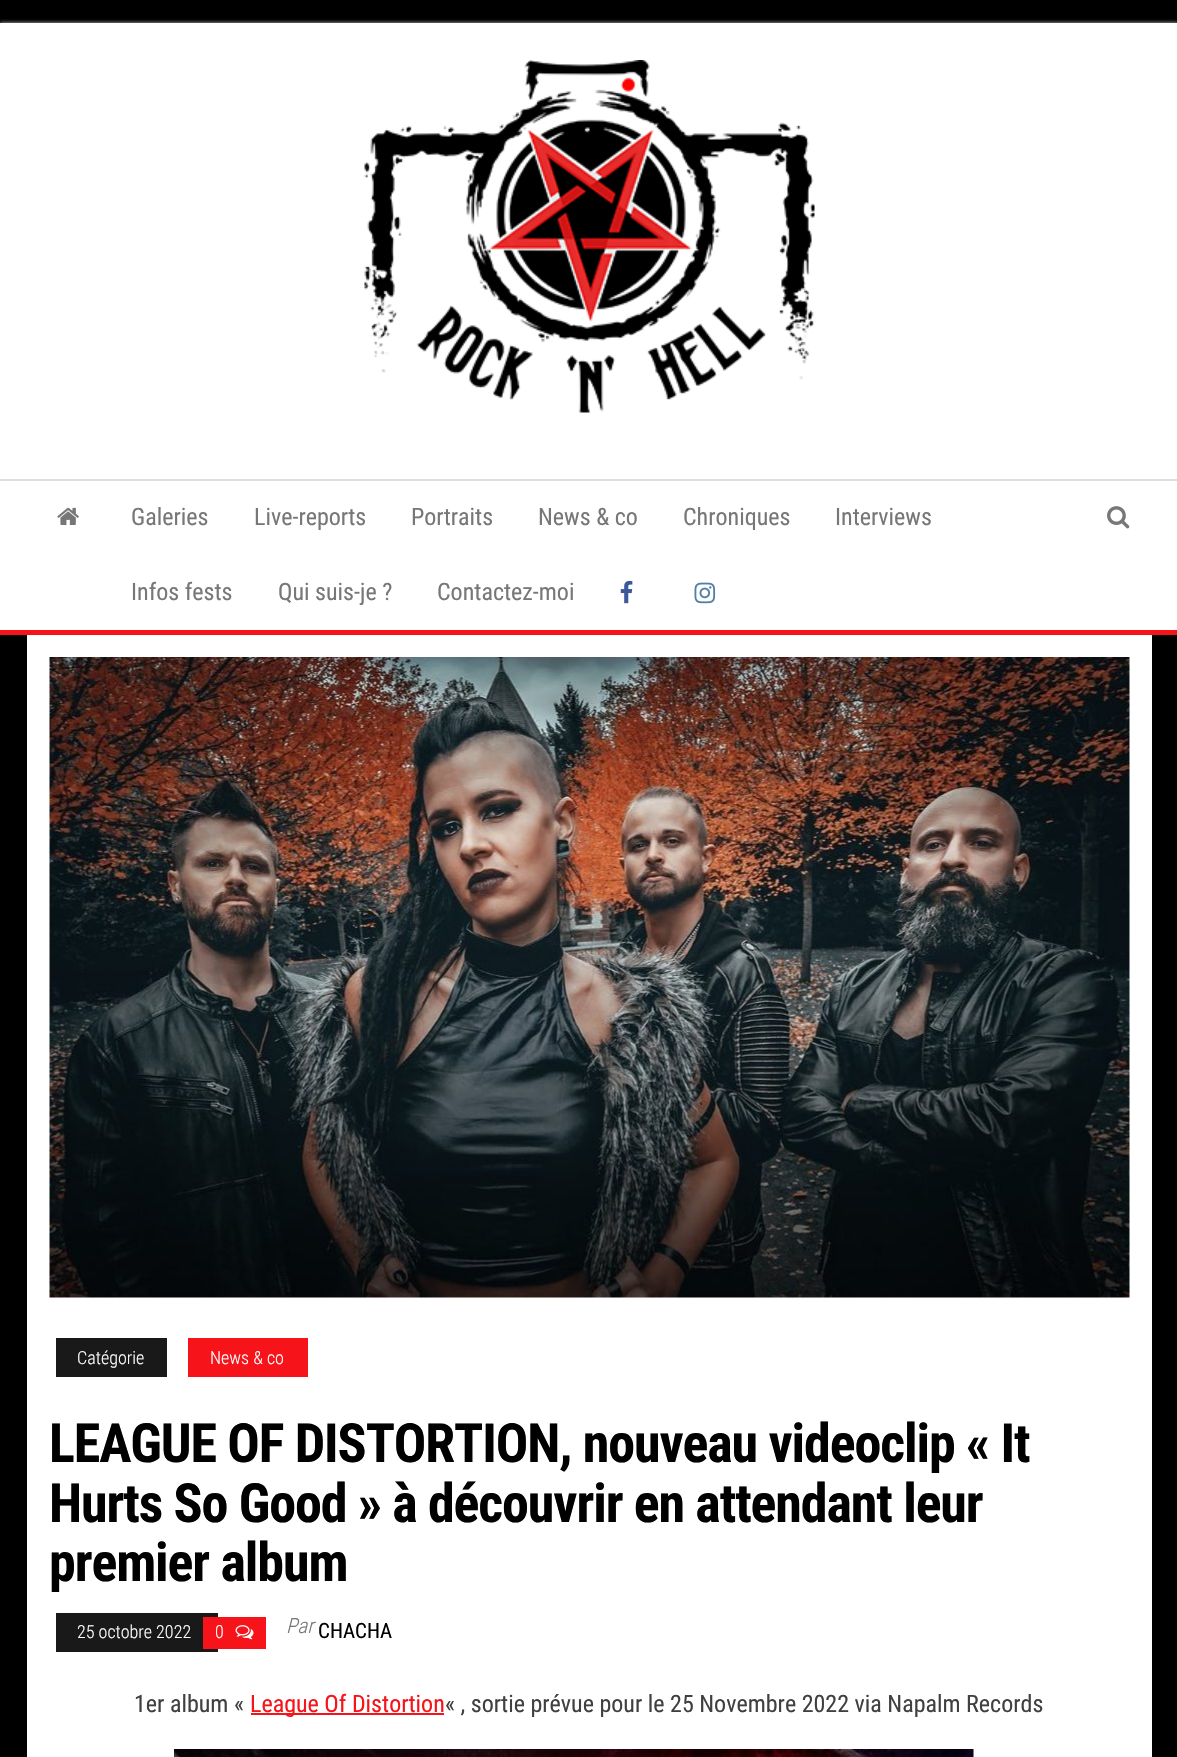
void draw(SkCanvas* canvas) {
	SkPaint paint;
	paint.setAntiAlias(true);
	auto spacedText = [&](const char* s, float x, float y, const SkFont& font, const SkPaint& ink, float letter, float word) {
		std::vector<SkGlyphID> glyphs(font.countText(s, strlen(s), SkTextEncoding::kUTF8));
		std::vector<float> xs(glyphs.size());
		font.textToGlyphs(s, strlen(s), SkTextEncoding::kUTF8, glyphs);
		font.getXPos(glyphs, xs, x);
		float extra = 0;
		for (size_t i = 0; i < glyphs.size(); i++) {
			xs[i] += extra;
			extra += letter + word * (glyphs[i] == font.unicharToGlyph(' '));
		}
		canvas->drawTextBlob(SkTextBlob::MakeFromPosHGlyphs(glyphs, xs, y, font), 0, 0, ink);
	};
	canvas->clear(0xff000000);
	canvas->save();
	canvas->clipRect(SkRect::MakeXYWH(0, 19, 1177, 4));
	paint.setColor(0xffcacaca);
	paint.setMaskFilter(SkMaskFilter::MakeBlur(kNormal_SkBlurStyle, 2));
	canvas->drawRect(SkRect::MakeXYWH(0, 23, 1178, 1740), paint);
	paint.setMaskFilter(nullptr);
	canvas->restore();
	paint.setColor(0xffffffff);
	canvas->drawRect(SkRect::MakeXYWH(0, 23, 1177, 456), paint);
	canvas->drawImageRect(SkImages::DeferredFromEncodedData(SkData::MakeFromFileName("img1.png")), SkRect::MakeXYWH(364, 60, 451, 353), SkSamplingOptions());
	canvas->drawRect(SkRect::MakeXYWH(0, 481, 1177, 149), paint);
	paint.setColor(0xffdddddd);
	canvas->drawRect(SkRect::MakeXYWH(0, 479, 1177, 2), paint);
	paint.setColor(0xfff61319);
	canvas->drawRect(SkRect::MakeXYWH(0, 630, 1177, 5), paint);
	canvas->drawImageRect(SkImages::DeferredFromEncodedData(SkData::MakeFromFileName("img2.png")), SkRect::MakeXYWH(57, 507, 22, 18), SkSamplingOptions());
	SkFont f1(fontMgr->matchFamilyStyle("Roboto Condensed", SkFontStyle::Normal()), 24);
	f1.setSubpixel(true);
	paint.setColor(0xff777777);
	canvas->drawString("Galeries", 131, 525, f1, paint);
	canvas->drawString("Live-reports", 254, 525, f1, paint);
	canvas->drawString("Portraits", 411, 525, f1, paint);
	canvas->drawString("News & co", 538, 525, f1, paint);
	canvas->drawString("Chroniques", 683, 525, f1, paint);
	canvas->drawString("Interviews", 835, 525, f1, paint);
	canvas->drawString("Infos fests", 131, 600, f1, paint);
	canvas->drawString("Qui suis-je ?", 278, 600, f1, paint);
	canvas->drawString("Contactez-moi", 437, 600, f1, paint);
	canvas->drawImageRect(SkImages::DeferredFromEncodedData(SkData::MakeFromFileName("img3.png")), SkRect::MakeXYWH(620, 580, 13, 24), SkSamplingOptions());
	canvas->drawImageRect(SkImages::DeferredFromEncodedData(SkData::MakeFromFileName("img4.png")), SkRect::MakeXYWH(694, 582, 22, 22), SkSamplingOptions());
	canvas->drawImageRect(SkImages::DeferredFromEncodedData(SkData::MakeFromFileName("img5.png")), SkRect::MakeXYWH(1107, 506, 23, 23), SkSamplingOptions());
	paint.setColor(0xffffffff);
	canvas->drawRect(SkRect::MakeXYWH(27, 635, 1125, 1122), paint);
	canvas->drawImageRect(SkImages::DeferredFromEncodedData(SkData::MakeFromFileName("img6.png")), SkRect::MakeXYWH(49, 657, 1081, 641), SkSamplingOptions());
	paint.setColor(0xff191919);
	canvas->drawRect(SkRect::MakeXYWH(56, 1338, 111, 39), paint);
	SkFont f2(fontMgr->matchFamilyStyle("Roboto Condensed", SkFontStyle(300, SkFontStyle::kNormal_Width, SkFontStyle::kUpright_Slant)), 18);
	f2.setSubpixel(true);
	paint.setColor(0xffffffff);
	canvas->drawString("Catégorie", 77, 1364, f2, paint);
	paint.setColor(0xfff61319);
	canvas->drawRect(SkRect::MakeXYWH(188, 1338, 120, 39), paint);
	paint.setColor(0xffffffff);
	canvas->drawString("News & co", 210, 1364, f2, paint);
	SkFont f3(fontMgr->matchFamilyStyle("Roboto Condensed", SkFontStyle::Bold()), 54);
	f3.setSubpixel(true);
	paint.setColor(0xff000000);
	spacedText("LEAGUE OF DISTORTION, nouveau videoclip « It", 49, 1462, f3, paint, -1.1, 0);
	spacedText("Hurts So Good » à découvrir en attendant leur", 49, 1522, f3, paint, -1.1, 0);
	spacedText("premier album", 49, 1581, f3, paint, -1.1, 0);
	paint.setColor(0xff191919);
	canvas->drawRect(SkRect::MakeXYWH(56, 1613, 162, 39), paint);
	paint.setColor(0xffffffff);
	canvas->drawString("25 octobre 2022", 77, 1638, f2, paint);
	paint.setColor(0xfff61319);
	canvas->drawRect(SkRect::MakeXYWH(203, 1617, 63, 32), paint);
	paint.setColor(0xffffffff);
	canvas->drawString("0", 215, 1638, f2, paint);
	canvas->drawImageRect(SkImages::DeferredFromEncodedData(SkData::MakeFromFileName("img7.png")), SkRect::MakeXYWH(235, 1625, 19, 15), SkSamplingOptions());
	SkFont f4(fontMgr->matchFamilyStyle("Roboto Condensed", SkFontStyle(300, SkFontStyle::kNormal_Width, SkFontStyle::kItalic_Slant)), 21);
	f4.setSubpixel(true);
	paint.setColor(0xff777777);
	canvas->drawString("Par", 286, 1633, f4, paint);
	SkFont f5(fontMgr->matchFamilyStyle("Roboto Condensed", SkFontStyle::Normal()), 21);
	f5.setSubpixel(true);
	paint.setColor(0xff000000);
	canvas->drawString("CHACHA", 318, 1638, f5, paint);
	paint.setColor(0xff404040);
	canvas->drawString("1er album «", 134, 1712, f1, paint);
	paint.setColor(0xfff61319);
	canvas->drawRect(SkRect::MakeXYWH(251, 1713, 193, 2), paint);
	canvas->drawString("League Of Distortion", 250, 1712, f1, paint);
	paint.setColor(0xff404040);
	canvas->drawString("« , sortie prévue pour le 25 Novembre 2022 via Napalm Records", 445, 1712, f1, paint);
	canvas->drawImageRect(SkImages::DeferredFromEncodedData(SkData::MakeFromFileName("img8.png")), SkRect::MakeXYWH(174, 1749, 800, 8), SkSamplingOptions());
}
